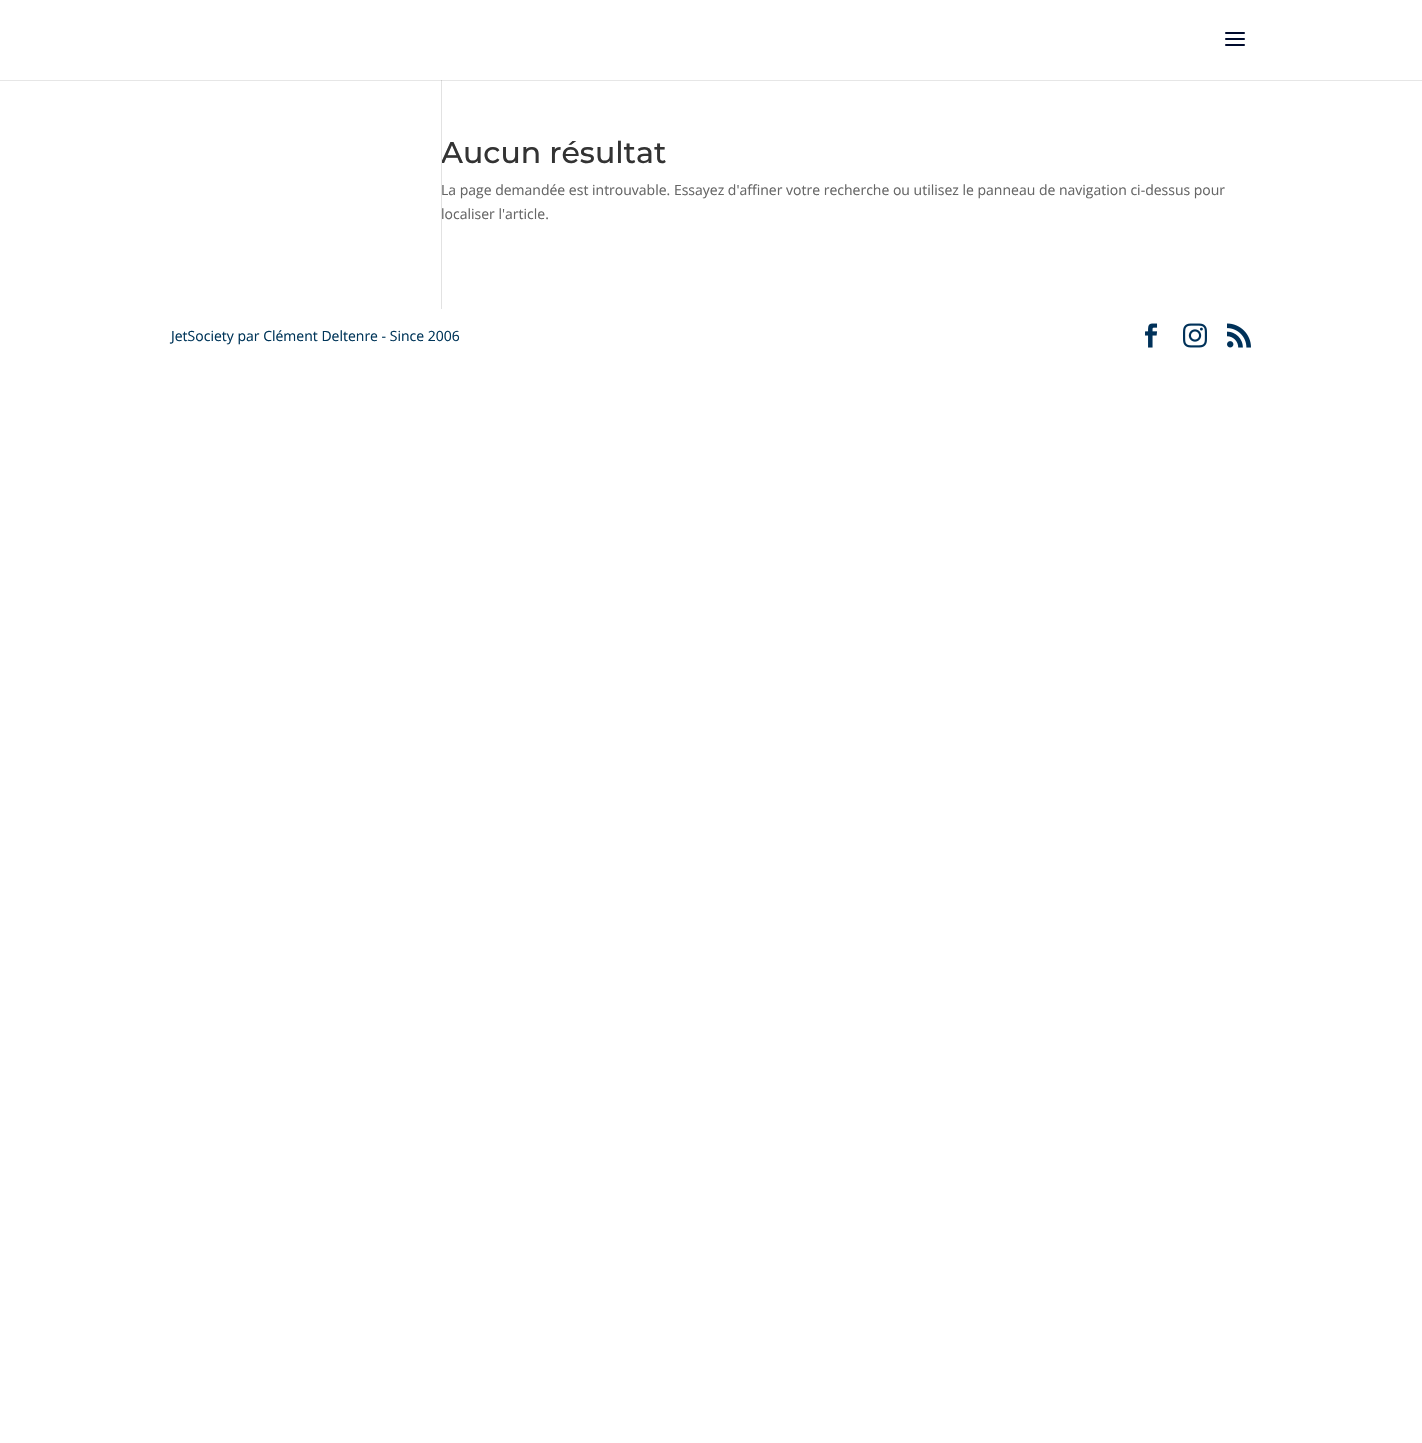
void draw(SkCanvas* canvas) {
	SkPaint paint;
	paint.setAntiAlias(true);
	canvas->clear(0xffffffff);
	paint.setColor(0xffe6e6e6);
	canvas->drawRect(SkRect::MakeXYWH(0, 80, 1422, 1), paint);
	canvas->drawImageRect(SkImages::DeferredFromEncodedData(SkData::MakeFromFileName("img1.png")), SkRect::MakeXYWH(1225, 32, 20, 14), SkSamplingOptions());
	SkFont f1(fontMgr->matchFamilyStyle("Montserrat", SkFontStyle(500, SkFontStyle::kNormal_Width, SkFontStyle::kUpright_Slant)), 30);
	f1.setSubpixel(true);
	paint.setColor(0xff333333);
	canvas->drawString("Aucun résultat", 441, 163, f1, paint);
	paint.setColor(0xffe2e2e2);
	canvas->drawRect(SkRect::MakeXYWH(441, 80, 1, 229), paint);
	paint.setColor(0xffcbcbcb);
	canvas->drawRect(SkRect::MakeXYWH(441, 80, 1, 1), paint);
	SkFont f2(fontMgr->matchFamilyStyle("Open Sans", SkFontStyle::Normal()), 14);
	f2.setSubpixel(true);
	paint.setColor(0xff666666);
	canvas->drawString("La page demandée est introuvable. Essayez d'affiner votre recherche ou utilisez le panneau de navigation ci-dessus pour", 441, 195, f2, paint);
	canvas->drawString("localiser l'article.", 441, 219, f2, paint);
	paint.setColor(0xff003559);
	canvas->drawString("JetSociety par Clément Deltenre - Since 2006", 171, 341, f2, paint);
	canvas->drawImageRect(SkImages::DeferredFromEncodedData(SkData::MakeFromFileName("img2.png")), SkRect::MakeXYWH(1145, 323, 13, 25), SkSamplingOptions());
	canvas->drawImageRect(SkImages::DeferredFromEncodedData(SkData::MakeFromFileName("img3.png")), SkRect::MakeXYWH(1183, 323, 24, 25), SkSamplingOptions());
	canvas->drawImageRect(SkImages::DeferredFromEncodedData(SkData::MakeFromFileName("img4.png")), SkRect::MakeXYWH(1227, 323, 24, 25), SkSamplingOptions());
}
